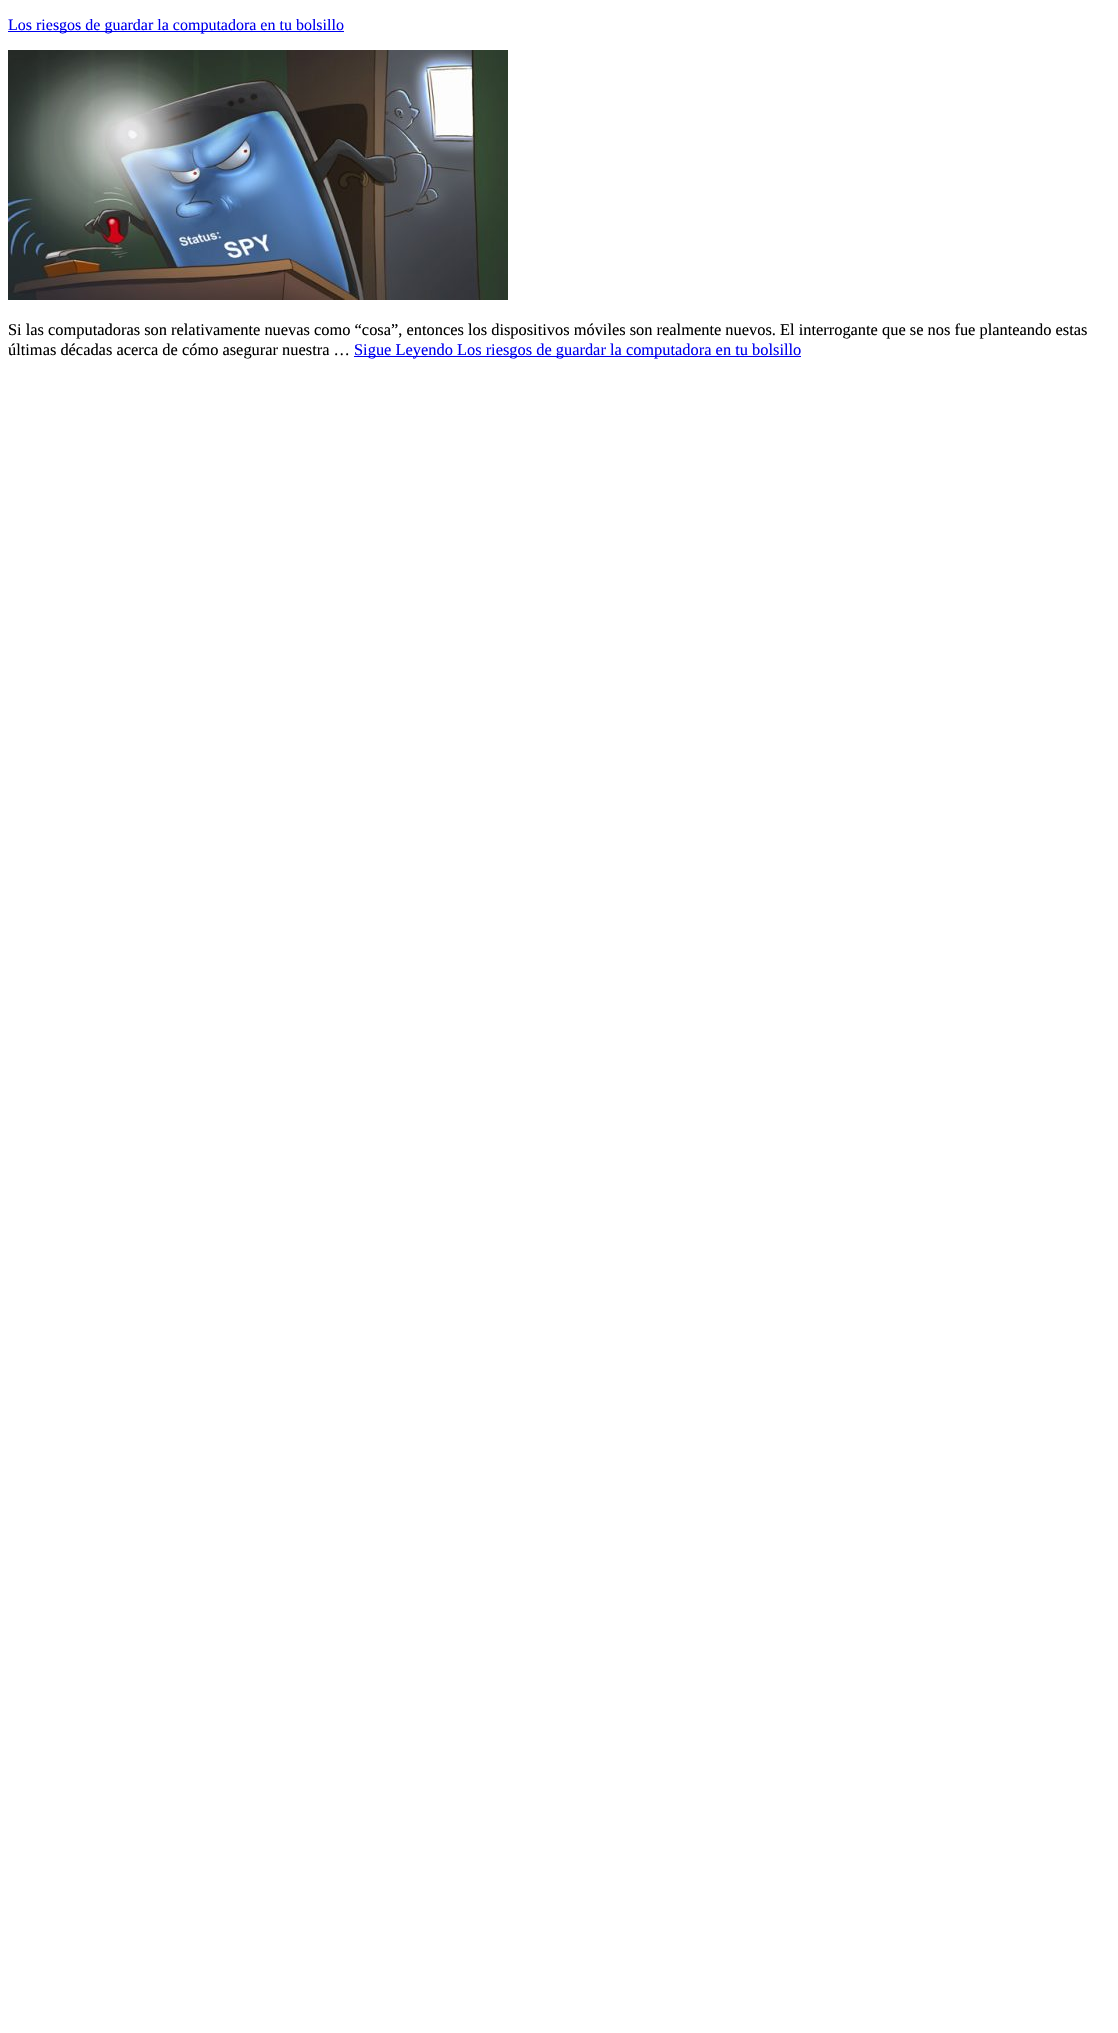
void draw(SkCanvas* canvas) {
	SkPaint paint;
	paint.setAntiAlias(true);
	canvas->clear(0xffffffff);
	paint.setColor(0xff0000ee);
	canvas->drawRect(SkRect::MakeXYWH(8, 31, 336, 1), paint);
	SkFont f1(fontMgr->matchFamilyStyle("Liberation Serif", SkFontStyle::Normal()), 16);
	f1.setSubpixel(true);
	canvas->drawString("Los riesgos de guardar la computadora en tu bolsillo", 8, 30, f1, paint);
	canvas->drawImageRect(SkImages::DeferredFromEncodedData(SkData::MakeFromFileName("img1.png")), SkRect::MakeXYWH(8, 50, 500, 250), SkSamplingOptions());
	SkFont f2(fontMgr->matchFamilyStyle("Liberation Serif", SkFontStyle::Normal()), 16.4);
	f2.setSubpixel(true);
	paint.setColor(0xff000000);
	canvas->drawString("Si las computadoras son relativamente nuevas como “cosa”, entonces los dispositivos móviles son realmente nuevos. El interrogante que se nos fue planteando estas", 8, 335, f2, paint);
	canvas->drawString("últimas décadas acerca de cómo asegurar nuestra …", 8, 355, f2, paint);
	paint.setColor(0xff0000ee);
	canvas->drawRect(SkRect::MakeXYWH(354, 356, 447, 1), paint);
	canvas->drawString("Sigue Leyendo Los riesgos de guardar la computadora en tu bolsillo", 354, 355, f2, paint);
}
